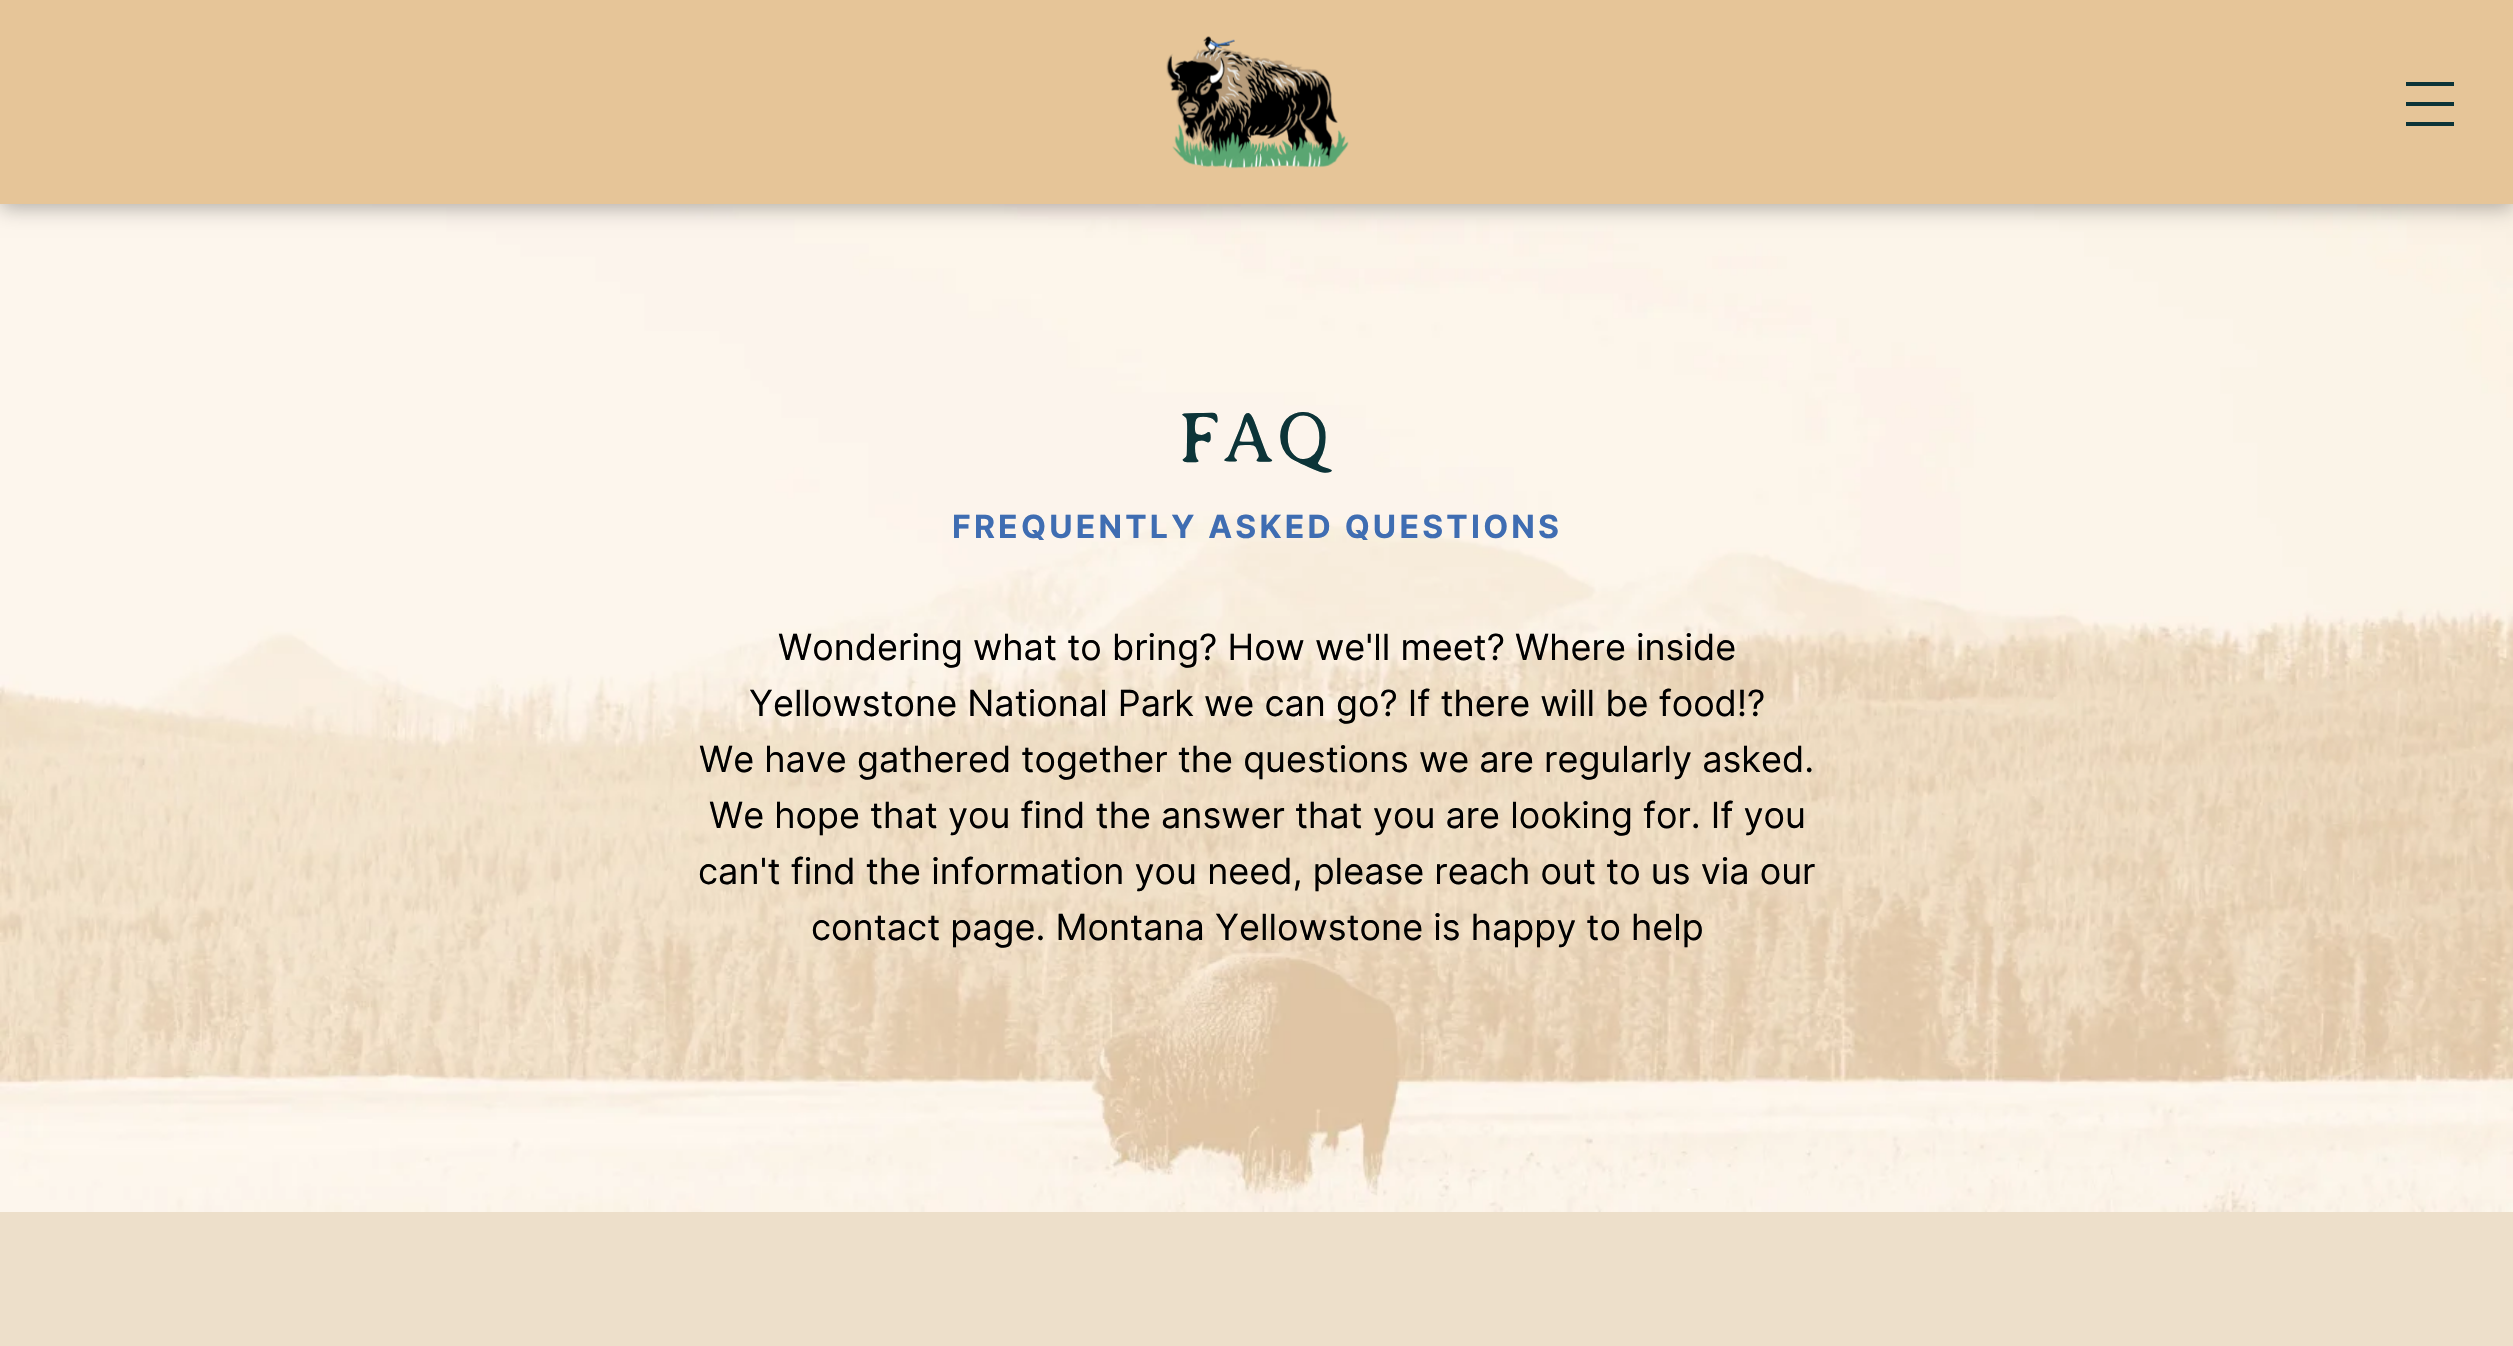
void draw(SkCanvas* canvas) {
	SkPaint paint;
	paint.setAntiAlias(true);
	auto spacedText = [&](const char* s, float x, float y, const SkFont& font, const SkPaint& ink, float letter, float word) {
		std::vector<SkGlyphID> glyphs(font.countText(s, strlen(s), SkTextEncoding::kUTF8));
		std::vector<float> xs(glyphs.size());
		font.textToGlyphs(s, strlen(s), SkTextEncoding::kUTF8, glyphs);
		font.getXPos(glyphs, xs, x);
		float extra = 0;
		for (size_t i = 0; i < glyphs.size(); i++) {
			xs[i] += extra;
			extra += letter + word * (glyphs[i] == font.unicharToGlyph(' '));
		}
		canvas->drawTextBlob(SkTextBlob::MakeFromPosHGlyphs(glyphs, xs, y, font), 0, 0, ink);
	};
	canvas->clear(0xffeddfca);
	canvas->drawImageRect(SkImages::DeferredFromEncodedData(SkData::MakeFromFileName("img2.png")), SkRect::MakeXYWH(0, 204, 2513, 1008), SkSamplingOptions());
	paint.setColor(0x4d000000);
	paint.setMaskFilter(SkMaskFilter::MakeBlur(kNormal_SkBlurStyle, 10));
	canvas->drawRect(SkRect::MakeXYWH(0, 4, 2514, 204), paint);
	paint.setMaskFilter(nullptr);
	paint.setColor(0xffe6c598);
	canvas->drawRect(SkRect::MakeXYWH(0, 0, 2513, 204), paint);
	canvas->drawImageRect(SkImages::DeferredFromEncodedData(SkData::MakeFromFileName("img1.png")), SkRect::MakeXYWH(1166, 36, 183, 133), SkSamplingOptions());
	paint.setColor(0xff0c3438);
	canvas->drawRect(SkRect::MakeXYWH(2406, 82, 48, 4), paint);
	canvas->drawRect(SkRect::MakeXYWH(2406, 102, 48, 4), paint);
	canvas->drawRect(SkRect::MakeXYWH(2406, 122, 48, 4), paint);
	SkFont f1(fontMgr->matchFamilyStyle("Averia Serif Libre", SkFontStyle(300, SkFontStyle::kNormal_Width, SkFontStyle::kUpright_Slant)), 72);
	f1.setSubpixel(true);
	spacedText("FAQ", 1178, 462, f1, paint, 3.5, 0);
	SkFont f2(fontMgr->matchFamilyStyle("Inter", SkFontStyle::Bold()), 32);
	f2.setSubpixel(true);
	paint.setColor(0xff3f6db2);
	spacedText("FREQUENTLY ASKED QUESTIONS", 952, 538, f2, paint, 3.2, 0);
	SkFont f3(fontMgr->matchFamilyStyle("Inter", SkFontStyle::Normal()), 36);
	f3.setSubpixel(true);
	paint.setColor(0xff000000);
	canvas->drawString("Wondering what to bring? How we'll meet? Where inside", 778, 660, f3, paint);
	canvas->drawString("Yellowstone National Park we can go? If there will be food!?", 749, 716, f3, paint);
	canvas->drawString("We have gathered together the questions we are regularly asked.", 699, 772, f3, paint);
	canvas->drawString("We hope that you find the answer that you are looking for. If you", 709, 828, f3, paint);
	canvas->drawString("can't find the information you need, please reach out to us via our", 698, 884, f3, paint);
	canvas->drawString("contact page. Montana Yellowstone is happy to help", 811, 940, f3, paint);
}
